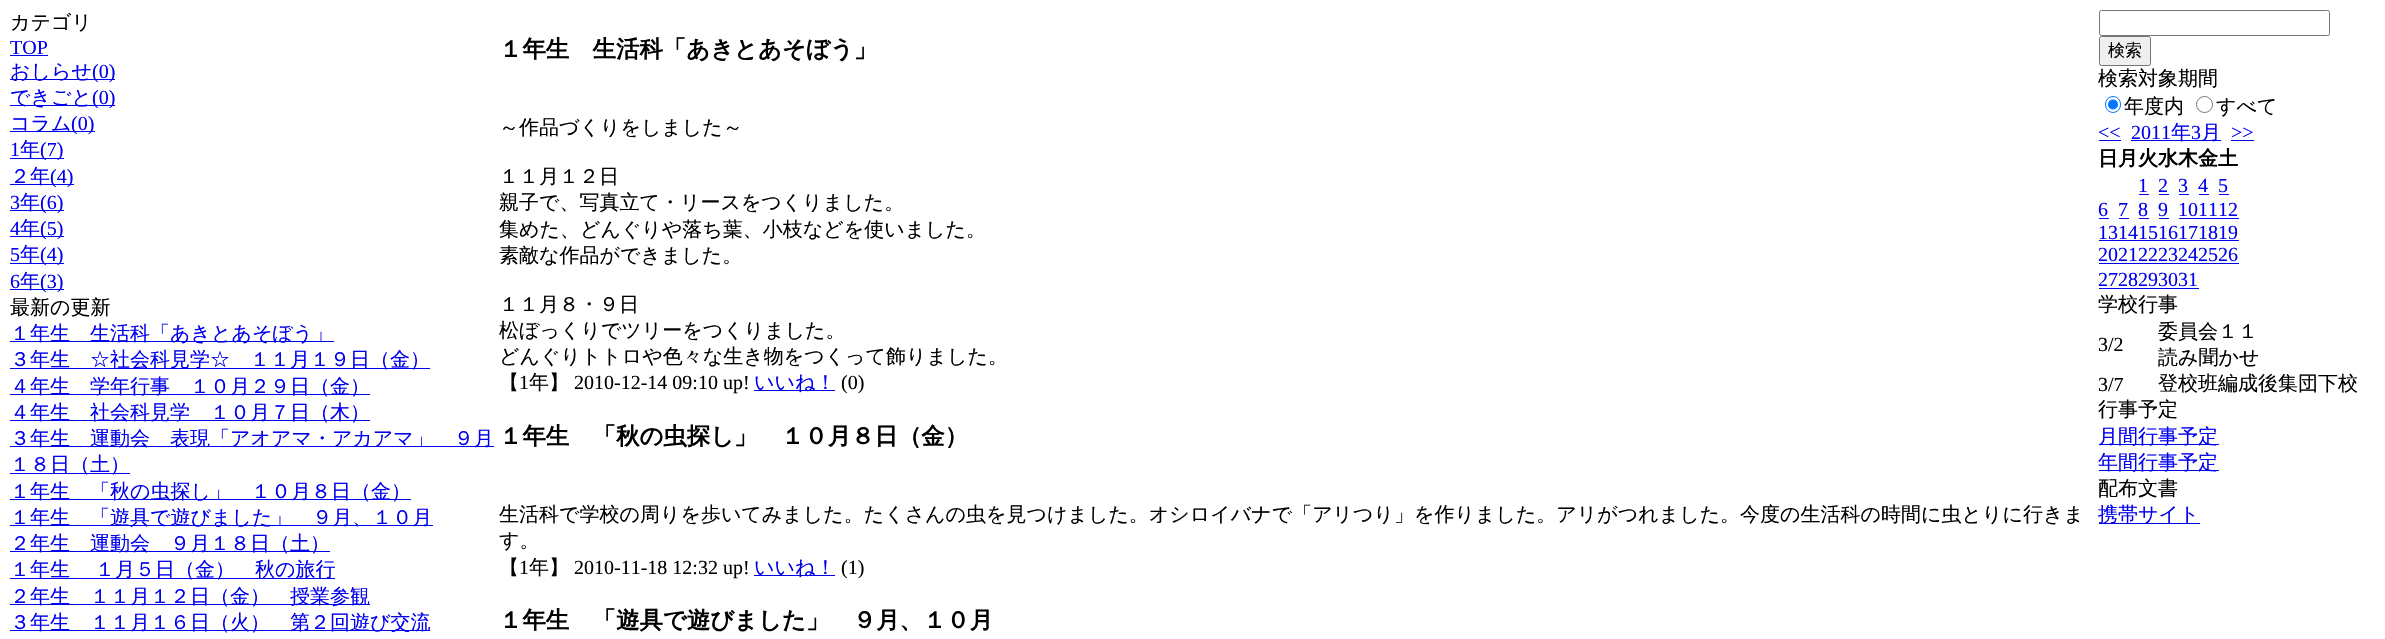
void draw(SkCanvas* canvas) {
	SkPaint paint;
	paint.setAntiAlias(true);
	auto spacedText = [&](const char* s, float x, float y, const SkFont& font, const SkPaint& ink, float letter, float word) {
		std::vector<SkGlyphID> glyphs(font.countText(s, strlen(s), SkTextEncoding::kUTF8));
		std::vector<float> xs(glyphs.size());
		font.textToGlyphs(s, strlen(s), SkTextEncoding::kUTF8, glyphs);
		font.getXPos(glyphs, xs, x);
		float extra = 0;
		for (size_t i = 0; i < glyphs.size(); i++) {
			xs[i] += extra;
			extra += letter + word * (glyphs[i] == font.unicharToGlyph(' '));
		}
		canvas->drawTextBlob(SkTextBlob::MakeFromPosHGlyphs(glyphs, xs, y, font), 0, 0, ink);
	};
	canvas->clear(0xffffffff);
	SkFont f1(fontMgr->matchFamilyStyle("WenQuanYi Zen Hei", SkFontStyle(500, SkFontStyle::kNormal_Width, SkFontStyle::kUpright_Slant)), 20);
	f1.setSubpixel(true);
	paint.setColor(0xff000000);
	canvas->drawString("カテゴリ", 10, 29, f1, paint);
	SkFont f2(fontMgr->matchFamilyStyle("Liberation Serif", SkFontStyle::Normal()), 20);
	f2.setSubpixel(true);
	paint.setColor(0xff0000ee);
	canvas->drawString("TOP", 10, 54, f2, paint);
	canvas->drawRect(SkRect::MakeXYWH(10, 55, 38, 1), paint);
	canvas->drawRect(SkRect::MakeXYWH(10, 79, 105, 1), paint);
	canvas->drawString("おしらせ", 10, 78, f1, paint);
	canvas->drawString("(0)", 92, 78, f2, paint);
	canvas->drawRect(SkRect::MakeXYWH(10, 105, 105, 1), paint);
	canvas->drawString("できごと", 10, 104, f1, paint);
	canvas->drawString("(0)", 92, 104, f2, paint);
	canvas->drawRect(SkRect::MakeXYWH(10, 131, 85, 1), paint);
	canvas->drawString("コラム", 10, 130, f1, paint);
	canvas->drawString("(0)", 71, 130, f2, paint);
	canvas->drawString("1", 10, 156, f2, paint);
	canvas->drawRect(SkRect::MakeXYWH(10, 158, 54, 1), paint);
	canvas->drawString("年", 20, 156, f1, paint);
	canvas->drawString("(7)", 40, 156, f2, paint);
	canvas->drawRect(SkRect::MakeXYWH(10, 184, 64, 1), paint);
	canvas->drawString("２年", 10, 183, f1, paint);
	canvas->drawString("(4)", 50, 183, f2, paint);
	canvas->drawString("3", 10, 209, f2, paint);
	canvas->drawRect(SkRect::MakeXYWH(10, 210, 54, 1), paint);
	canvas->drawString("年", 20, 209, f1, paint);
	canvas->drawString("(6)", 40, 209, f2, paint);
	canvas->drawString("4", 10, 235, f2, paint);
	canvas->drawRect(SkRect::MakeXYWH(10, 236, 54, 1), paint);
	canvas->drawString("年", 20, 235, f1, paint);
	canvas->drawString("(5)", 40, 235, f2, paint);
	canvas->drawString("5", 10, 261, f2, paint);
	canvas->drawRect(SkRect::MakeXYWH(10, 263, 54, 1), paint);
	canvas->drawString("年", 20, 261, f1, paint);
	canvas->drawString("(4)", 40, 261, f2, paint);
	canvas->drawString("6", 10, 288, f2, paint);
	canvas->drawRect(SkRect::MakeXYWH(10, 289, 54, 1), paint);
	canvas->drawString("年", 20, 288, f1, paint);
	canvas->drawString("(3)", 40, 288, f2, paint);
	paint.setColor(0xff000000);
	canvas->drawString("最新の更新", 10, 314, f1, paint);
	paint.setColor(0xff0000ee);
	canvas->drawRect(SkRect::MakeXYWH(10, 341, 324, 1), paint);
	canvas->drawString("１年生　生活科「あきとあそぼう」", 10, 340, f1, paint);
	canvas->drawRect(SkRect::MakeXYWH(10, 368, 420, 1), paint);
	canvas->drawString("３年生　☆社会科見学☆　１１月１９日（金）", 10, 366, f1, paint);
	canvas->drawRect(SkRect::MakeXYWH(10, 394, 360, 1), paint);
	canvas->drawString("４年生　学年行事　１０月２９日（金）", 10, 393, f1, paint);
	canvas->drawRect(SkRect::MakeXYWH(10, 420, 360, 1), paint);
	canvas->drawString("４年生　社会科見学　１０月７日（木）", 10, 419, f1, paint);
	canvas->drawRect(SkRect::MakeXYWH(10, 446, 484, 1), paint);
	canvas->drawString("３年生　運動会　表現「アオアマ・アカアマ」　９月", 10, 445, f1, paint);
	canvas->drawRect(SkRect::MakeXYWH(10, 473, 120, 1), paint);
	canvas->drawString("１８日（土）", 10, 471, f1, paint);
	canvas->drawRect(SkRect::MakeXYWH(10, 499, 401, 1), paint);
	canvas->drawString("１年生　「秋の虫探し」　１０月８日（金）", 10, 498, f1, paint);
	canvas->drawRect(SkRect::MakeXYWH(10, 525, 423, 1), paint);
	canvas->drawString("１年生　「遊具で遊びました」　９月、１０月", 10, 524, f1, paint);
	canvas->drawRect(SkRect::MakeXYWH(10, 551, 320, 1), paint);
	canvas->drawString("２年生　運動会　９月１８日（土）", 10, 550, f1, paint);
	canvas->drawRect(SkRect::MakeXYWH(10, 578, 325, 1), paint);
	spacedText("１年生 　１月５日（金）　秋の旅行", 10, 576, f1, paint, 0, -1);
	canvas->drawRect(SkRect::MakeXYWH(10, 604, 360, 1), paint);
	canvas->drawString("２年生　１１月１２日（金）　授業参観", 10, 603, f1, paint);
	canvas->drawRect(SkRect::MakeXYWH(10, 630, 420, 1), paint);
	canvas->drawString("３年生　１１月１６日（火）　第２回遊び交流", 10, 629, f1, paint);
	SkFont f3(fontMgr->matchFamilyStyle("WenQuanYi Zen Hei", SkFontStyle::Bold()), 23.4);
	f3.setSubpixel(true);
	paint.setColor(0xff000000);
	canvas->drawString("１年生　生活科「あきとあそぼう」", 499, 57, f3, paint);
	canvas->drawString("～作品づくりをしました～", 499, 134, f1, paint);
	canvas->drawString("１１月１２日", 499, 183, f1, paint);
	canvas->drawString("親子で、写真立て・リースをつくりました。", 499, 209, f1, paint);
	canvas->drawString("集めた、どんぐりや落ち葉、小枝などを使いました。", 499, 236, f1, paint);
	canvas->drawString("素敵な作品ができました。", 499, 262, f1, paint);
	canvas->drawString("１１月８・９日", 499, 311, f1, paint);
	canvas->drawString("松ぼっくりでツリーをつくりました。", 499, 337, f1, paint);
	canvas->drawString("どんぐりトトロや色々な生き物をつくって飾りました。", 499, 363, f1, paint);
	canvas->drawString("【", 499, 389, f1, paint);
	canvas->drawString("1", 519, 389, f2, paint);
	canvas->drawString("年】", 529, 389, f1, paint);
	canvas->drawString("2010-12-14 09:10 up!", 574, 389, f2, paint);
	paint.setColor(0xff0000ee);
	canvas->drawRect(SkRect::MakeXYWH(754, 390, 81, 1), paint);
	canvas->drawString("いいね！", 754, 389, f1, paint);
	paint.setColor(0xff000000);
	canvas->drawString("(0)", 841, 389, f2, paint);
	canvas->drawString("１年生　「秋の虫探し」　１０月８日（金）", 499, 444, f3, paint);
	canvas->drawString("生活科で学校の周りを歩いてみました。たくさんの虫を見つけました。オシロイバナで「アリつり」を作りました。アリがつれました。今度の生活科の時間に虫とりに行きま", 499, 521, f1, paint);
	canvas->drawString("す。", 499, 547, f1, paint);
	canvas->drawString("【", 499, 574, f1, paint);
	canvas->drawString("1", 519, 574, f2, paint);
	canvas->drawString("年】", 529, 574, f1, paint);
	canvas->drawString("2010-11-18 12:32 up!", 574, 574, f2, paint);
	paint.setColor(0xff0000ee);
	canvas->drawRect(SkRect::MakeXYWH(754, 575, 81, 1), paint);
	canvas->drawString("いいね！", 754, 574, f1, paint);
	paint.setColor(0xff000000);
	canvas->drawString("(1)", 841, 574, f2, paint);
	canvas->drawString("１年生　「遊具で遊びました」　９月、１０月", 499, 628, f3, paint);
	paint.setStroke(true);
	paint.setStrokeWidth(1);
	paint.setColor(0xff767676);
	canvas->drawRoundRect(SkRect::MakeXYWH(2099.5, 10.5, 230, 25), 2, 2, paint);
	paint.setStroke(false);
	paint.setColor(0xffefefef);
	canvas->drawRoundRect(SkRect::MakeXYWH(2099.5, 36.5, 51, 29), 2, 2, paint);
	paint.setStroke(true);
	paint.setColor(0xff767676);
	canvas->drawRoundRect(SkRect::MakeXYWH(2099.5, 36.5, 51, 29), 2, 2, paint);
	SkFont f4(fontMgr->matchFamilyStyle("WenQuanYi Zen Hei", SkFontStyle(500, SkFontStyle::kNormal_Width, SkFontStyle::kUpright_Slant)), 17);
	f4.setSubpixel(true);
	paint.setStroke(false);
	paint.setColor(0xff000000);
	canvas->drawString("検索", 2108, 56, f4, paint);
	canvas->drawString("検索対象期間", 2098, 85, f1, paint);
	paint.setStroke(true);
	paint.setColor(0xff0075ff);
	canvas->drawRoundRect(SkRect::MakeXYWH(2105.5, 96.5, 15, 16), 7.5, 7.5, paint);
	paint.setStroke(false);
	canvas->drawCircle(2113, 104.5, 5, paint);
	paint.setColor(0xff000000);
	canvas->drawString("年度内", 2124, 113, f1, paint);
	paint.setStroke(true);
	paint.setColor(0xff767676);
	canvas->drawCircle(2204.5, 104.5, 8, paint);
	paint.setStroke(false);
	paint.setColor(0xff000000);
	canvas->drawString("すべて", 2216, 113, f1, paint);
	paint.setColor(0xff0000ee);
	canvas->drawString("<<", 2098, 139, f2, paint);
	canvas->drawRect(SkRect::MakeXYWH(2099, 140, 22, 1), paint);
	canvas->drawString("2011", 2131, 139, f2, paint);
	canvas->drawRect(SkRect::MakeXYWH(2131, 140, 90, 1), paint);
	canvas->drawString("年", 2171, 139, f1, paint);
	canvas->drawString("3", 2191, 139, f2, paint);
	canvas->drawString("月", 2201, 139, f1, paint);
	canvas->drawString(">>", 2231, 139, f2, paint);
	canvas->drawRect(SkRect::MakeXYWH(2231, 140, 23, 1), paint);
	SkFont f5(fontMgr->matchFamilyStyle("WenQuanYi Zen Hei", SkFontStyle::Bold()), 20);
	f5.setSubpixel(true);
	paint.setColor(0xff000000);
	canvas->drawString("日月火水木金土", 2098, 165, f5, paint);
	paint.setColor(0xff0000ee);
	canvas->drawString("1", 2138, 192, f2, paint);
	canvas->drawRect(SkRect::MakeXYWH(2139, 194, 10, 1), paint);
	canvas->drawString("2", 2158, 192, f2, paint);
	canvas->drawRect(SkRect::MakeXYWH(2159, 194, 10, 1), paint);
	canvas->drawString("3", 2178, 192, f2, paint);
	canvas->drawRect(SkRect::MakeXYWH(2179, 194, 10, 1), paint);
	canvas->drawString("4", 2198, 192, f2, paint);
	canvas->drawRect(SkRect::MakeXYWH(2199, 194, 10, 1), paint);
	canvas->drawString("5", 2218, 192, f2, paint);
	canvas->drawRect(SkRect::MakeXYWH(2219, 194, 10, 1), paint);
	canvas->drawString("6", 2098, 216, f2, paint);
	canvas->drawRect(SkRect::MakeXYWH(2099, 218, 10, 1), paint);
	canvas->drawString("7", 2118, 216, f2, paint);
	canvas->drawRect(SkRect::MakeXYWH(2119, 218, 10, 1), paint);
	canvas->drawString("8", 2138, 216, f2, paint);
	canvas->drawRect(SkRect::MakeXYWH(2139, 218, 10, 1), paint);
	canvas->drawString("9", 2158, 216, f2, paint);
	canvas->drawRect(SkRect::MakeXYWH(2159, 218, 10, 1), paint);
	canvas->drawString("101112", 2178, 216, f2, paint);
	canvas->drawRect(SkRect::MakeXYWH(2179, 218, 60, 1), paint);
	canvas->drawString("13141516171819", 2098, 239, f2, paint);
	canvas->drawRect(SkRect::MakeXYWH(2099, 240, 140, 1), paint);
	canvas->drawString("20212223242526", 2098, 261, f2, paint);
	canvas->drawRect(SkRect::MakeXYWH(2099, 263, 140, 1), paint);
	canvas->drawString("2728293031", 2098, 286, f2, paint);
	canvas->drawRect(SkRect::MakeXYWH(2099, 288, 100, 1), paint);
	paint.setColor(0xff000000);
	canvas->drawString("学校行事", 2098, 311, f1, paint);
	canvas->drawString("委員会１１", 2158, 338, f1, paint);
	canvas->drawString("3/2", 2098, 351, f2, paint);
	canvas->drawString("読み聞かせ", 2158, 364, f1, paint);
	canvas->drawString("3/7", 2098, 391, f2, paint);
	canvas->drawString("登校班編成後集団下校", 2158, 390, f1, paint);
	canvas->drawString("行事予定", 2098, 416, f1, paint);
	paint.setColor(0xff0000ee);
	canvas->drawRect(SkRect::MakeXYWH(2099, 444, 120, 1), paint);
	canvas->drawString("月間行事予定", 2098, 443, f1, paint);
	canvas->drawRect(SkRect::MakeXYWH(2099, 470, 120, 1), paint);
	canvas->drawString("年間行事予定", 2098, 469, f1, paint);
	paint.setColor(0xff000000);
	canvas->drawString("配布文書", 2098, 495, f1, paint);
	paint.setColor(0xff0000ee);
	canvas->drawRect(SkRect::MakeXYWH(2099, 523, 101, 1), paint);
	canvas->drawString("携帯サイト", 2098, 521, f1, paint);
}
